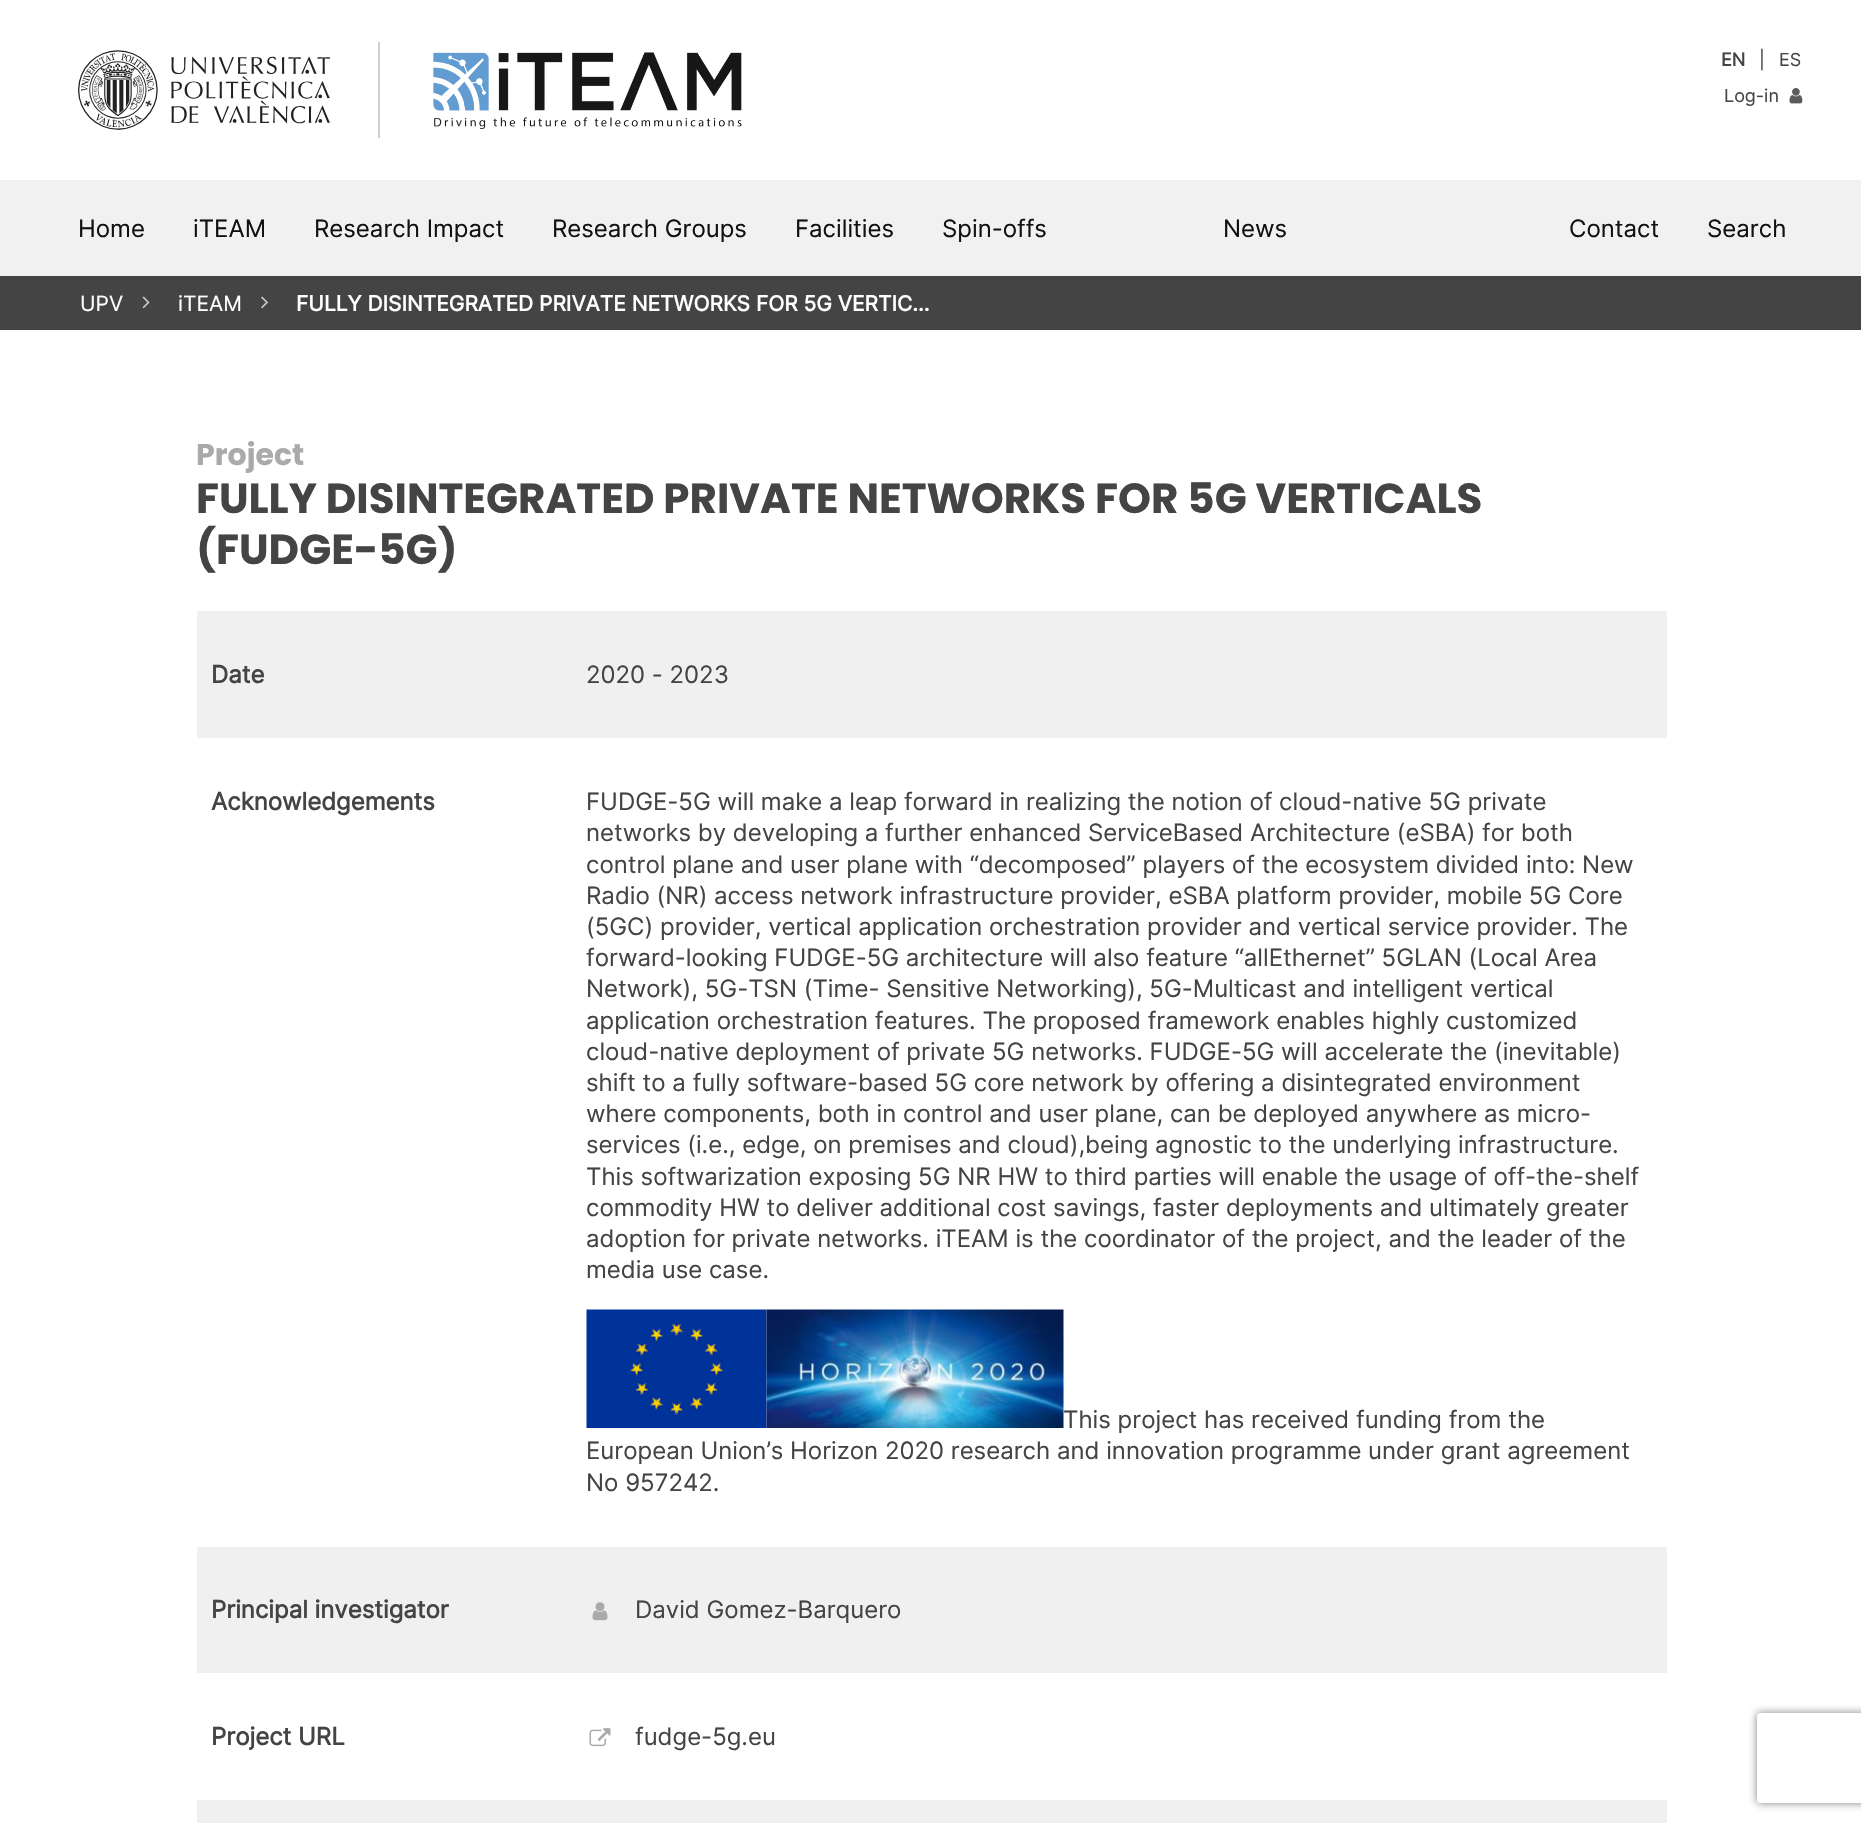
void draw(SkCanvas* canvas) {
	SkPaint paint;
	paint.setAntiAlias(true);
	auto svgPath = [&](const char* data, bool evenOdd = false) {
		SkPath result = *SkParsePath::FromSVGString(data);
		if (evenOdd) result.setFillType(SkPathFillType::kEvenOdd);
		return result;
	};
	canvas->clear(0xffffffff);
	canvas->drawImageRect(SkImages::DeferredFromEncodedData(SkData::MakeFromFileName("img1.png")), SkRect::MakeXYWH(78, 50, 252, 80), SkSamplingOptions());
	paint.setColor(0xffcfcfcf);
	canvas->drawRect(SkRect::MakeXYWH(378, 42, 2, 96), paint);
	canvas->drawImageRect(SkImages::DeferredFromEncodedData(SkData::MakeFromFileName("img2.png")), SkRect::MakeXYWH(433, 52, 309, 77), SkSamplingOptions());
	SkFont f1(fontMgr->matchFamilyStyle("Inter", SkFontStyle::Bold()), 18);
	f1.setSubpixel(true);
	paint.setColor(0xff444444);
	canvas->drawString("EN", 1721, 66, f1, paint);
	SkFont f2(fontMgr->matchFamilyStyle("Inter", SkFontStyle::Normal()), 18);
	f2.setSubpixel(true);
	canvas->drawString("|", 1759, 66, f2, paint);
	canvas->drawString("ES", 1779, 66, f2, paint);
	canvas->drawString("Log-in", 1724, 102, f2, paint);
	canvas->drawImageRect(SkImages::DeferredFromEncodedData(SkData::MakeFromFileName("img3.png")), SkRect::MakeXYWH(1789, 88, 14, 16), SkSamplingOptions());
	paint.setColor(0xfff1f1f1);
	canvas->drawRect(SkRect::MakeXYWH(0, 180, 1861, 96), paint);
	SkFont f3(fontMgr->matchFamilyStyle("Inter", SkFontStyle::Normal()), 24);
	f3.setSubpixel(true);
	paint.setColor(0xff111111);
	canvas->drawString("Home", 78, 237, f3, paint);
	canvas->drawString("iTEAM", 193, 237, f3, paint);
	canvas->drawString("Research Impact", 314, 237, f3, paint);
	canvas->drawString("Research Groups", 552, 237, f3, paint);
	canvas->drawString("Facilities", 795, 237, f3, paint);
	canvas->drawString("Spin-offs", 942, 237, f3, paint);
	canvas->drawString("News", 1223, 237, f3, paint);
	canvas->drawString("Contact", 1569, 237, f3, paint);
	canvas->drawString("Search", 1707, 237, f3, paint);
	paint.setColor(0xff444444);
	canvas->drawRect(SkRect::MakeXYWH(0, 276, 1861, 54), paint);
	SkFont f4(fontMgr->matchFamilyStyle("Inter", SkFontStyle::Normal()), 21);
	f4.setSubpixel(true);
	paint.setColor(0xffffffff);
	canvas->drawString("UPV", 80, 311, f4, paint);
	canvas->drawImageRect(SkImages::DeferredFromEncodedData(SkData::MakeFromFileName("img4.png")), SkRect::MakeXYWH(142, 296, 8, 13), SkSamplingOptions());
	canvas->drawString("iTEAM", 178, 311, f4, paint);
	canvas->drawImageRect(SkImages::DeferredFromEncodedData(SkData::MakeFromFileName("img5.png")), SkRect::MakeXYWH(261, 296, 7, 13), SkSamplingOptions());
	SkFont f5(fontMgr->matchFamilyStyle("Inter", SkFontStyle::Bold()), 21);
	f5.setSubpixel(true);
	canvas->drawString("FULLY DISINTEGRATED PRIVATE NETWORKS FOR 5G VERTIC…", 296, 311, f5, paint);
	SkFont f6(fontMgr->matchFamilyStyle("Poppins", SkFontStyle::Bold()), 30);
	f6.setSubpixel(true);
	paint.setColor(0xffaaaaaa);
	canvas->drawString("Project", 196, 465, f6, paint);
	SkFont f7(fontMgr->matchFamilyStyle("Poppins", SkFontStyle::Bold()), 42);
	f7.setSubpixel(true);
	paint.setColor(0xff444444);
	canvas->drawString("FULLY DISINTEGRATED PRIVATE NETWORKS FOR 5G VERTICALS", 196, 513, f7, paint);
	canvas->drawString("(FUDGE-5G)", 196, 564, f7, paint);
	paint.setColor(0xfff0f0f0);
	canvas->drawRect(SkRect::MakeXYWH(197, 611, 1470, 127), paint);
	SkFont f8(fontMgr->matchFamilyStyle("Inter", SkFontStyle::Bold()), 24);
	f8.setSubpixel(true);
	paint.setColor(0xff444444);
	canvas->drawString("Date", 211, 683, f8, paint);
	canvas->drawString("2020 - 2023", 586, 683, f3, paint);
	canvas->drawString("Acknowledgements", 211, 810, f8, paint);
	canvas->drawString("FUDGE-5G will make a leap forward in realizing the notion of cloud-native 5G private", 586, 810, f3, paint);
	canvas->drawString("networks by developing a further enhanced ServiceBased Architecture (eSBA) for both", 586, 841, f3, paint);
	canvas->drawString("control plane and user plane with “decomposed” players of the ecosystem divided into: New", 586, 873, f3, paint);
	canvas->drawString("Radio (NR) access network infrastructure provider, eSBA platform provider, mobile 5G Core", 586, 904, f3, paint);
	canvas->drawString("(5GC) provider, vertical application orchestration provider and vertical service provider. The", 586, 935, f3, paint);
	canvas->drawString("forward-looking FUDGE-5G architecture will also feature “allEthernet” 5GLAN (Local Area", 586, 966, f3, paint);
	canvas->drawString("Network), 5G-TSN (Time- Sensitive Networking), 5G-Multicast and intelligent vertical", 586, 997, f3, paint);
	canvas->drawString("application orchestration features. The proposed framework enables highly customized", 586, 1029, f3, paint);
	canvas->drawString("cloud-native deployment of private 5G networks. FUDGE-5G will accelerate the (inevitable)", 586, 1060, f3, paint);
	canvas->drawString("shift to a fully software-based 5G core network by offering a disintegrated environment", 586, 1091, f3, paint);
	canvas->drawString("where components, both in control and user plane, can be deployed anywhere as micro-", 586, 1122, f3, paint);
	canvas->drawString("services (i.e., edge, on premises and cloud),being agnostic to the underlying infrastructure.", 586, 1153, f3, paint);
	canvas->drawString("This softwarization exposing 5G NR HW to third parties will enable the usage of off-the-shelf", 586, 1185, f3, paint);
	canvas->drawString("commodity HW to deliver additional cost savings, faster deployments and ultimately greater", 586, 1216, f3, paint);
	canvas->drawString("adoption for private networks. iTEAM is the coordinator of the project, and the leader of the", 586, 1247, f3, paint);
	canvas->drawString("media use case.", 586, 1278, f3, paint);
	canvas->drawImageRect(SkImages::DeferredFromEncodedData(SkData::MakeFromFileName("img6.png")), SkRect::MakeXYWH(586, 1309, 181, 119), SkSamplingOptions());
	canvas->drawImageRect(SkImages::DeferredFromEncodedData(SkData::MakeFromFileName("img7.png")), SkRect::MakeXYWH(766, 1309, 298, 119), SkSamplingOptions());
	canvas->drawString("This project has received funding from the", 1063, 1428, f3, paint);
	canvas->drawString("European Union’s Horizon 2020 research and innovation programme under grant agreement", 586, 1459, f3, paint);
	canvas->drawString("No 957242.", 586, 1491, f3, paint);
	paint.setColor(0xfff0f0f0);
	canvas->drawRect(SkRect::MakeXYWH(197, 1547, 1470, 126), paint);
	paint.setColor(0xff444444);
	canvas->drawString("Principal investigator", 211, 1618, f8, paint);
	canvas->drawImageRect(SkImages::DeferredFromEncodedData(SkData::MakeFromFileName("img8.png")), SkRect::MakeXYWH(592, 1602, 16, 19), SkSamplingOptions());
	canvas->drawString("David Gomez-Barquero", 635, 1618, f3, paint);
	canvas->drawString("Project URL", 211, 1745, f8, paint);
	canvas->drawImageRect(SkImages::DeferredFromEncodedData(SkData::MakeFromFileName("img9.png")), SkRect::MakeXYWH(589, 1728, 22, 19), SkSamplingOptions());
	canvas->drawString("fudge-5g.eu", 635, 1745, f3, paint);
	paint.setColor(0xfff0f0f0);
	canvas->drawRect(SkRect::MakeXYWH(197, 1800, 1470, 23), paint);
	canvas->save();
	canvas->clipPath(svgPath("M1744 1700H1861V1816H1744ZM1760 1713H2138C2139.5 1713 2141 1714.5 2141 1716V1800C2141 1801.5 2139.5 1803 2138 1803H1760C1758.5 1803 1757 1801.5 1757 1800V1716C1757 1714.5 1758.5 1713 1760 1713Z", true), true);
	paint.setColor(0xff808080);
	paint.setMaskFilter(SkMaskFilter::MakeBlur(kNormal_SkBlurStyle, 4));
	canvas->drawRoundRect(SkRect::MakeXYWH(1757, 1713, 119, 90), 3, 3, paint);
	paint.setMaskFilter(nullptr);
	canvas->restore();
}
